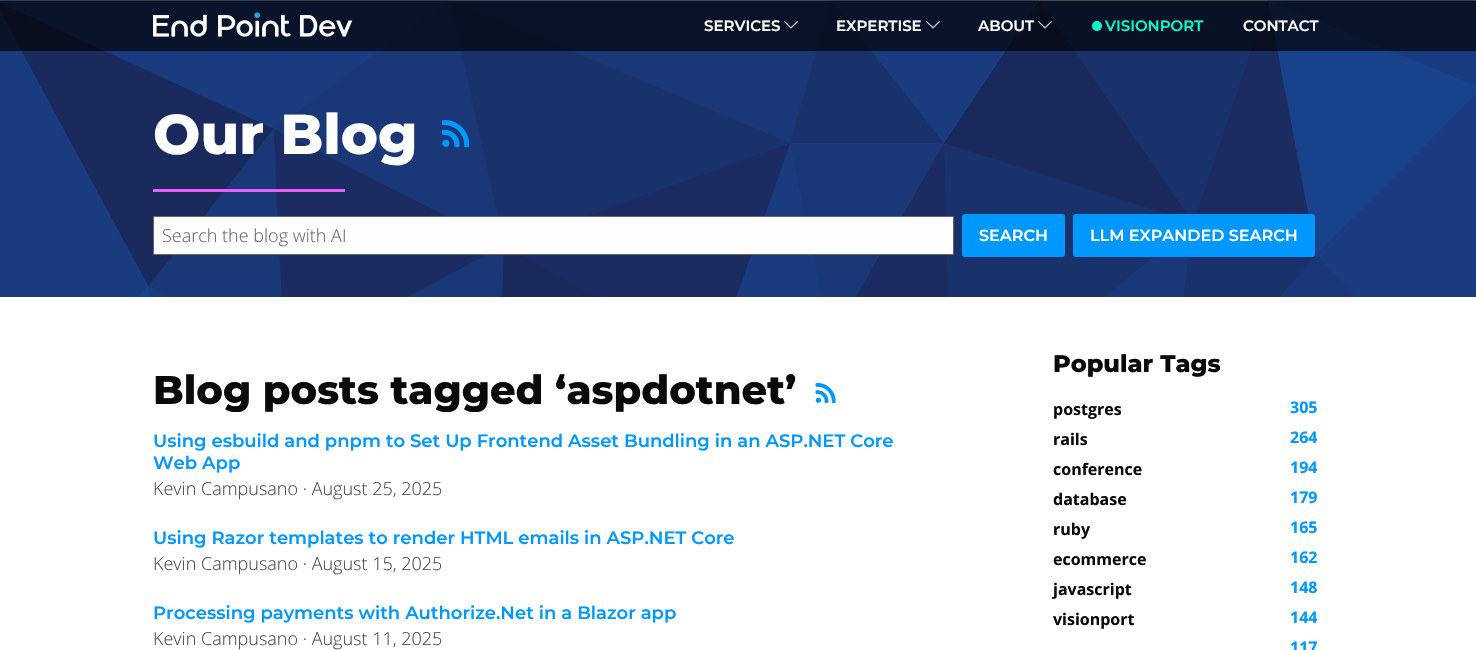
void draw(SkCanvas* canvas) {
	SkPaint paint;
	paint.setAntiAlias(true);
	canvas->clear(0xffffffff);
	canvas->drawImageRect(SkImages::DeferredFromEncodedData(SkData::MakeFromFileName("img5.png")), SkRect::MakeXYWH(0, 0, 1476, 297), SkSamplingOptions());
	paint.setColor(0xab000000);
	canvas->drawRect(SkRect::MakeXYWH(0, 0, 1476, 51), paint);
	canvas->drawImageRect(SkImages::DeferredFromEncodedData(SkData::MakeFromFileName("img1.png")), SkRect::MakeXYWH(153, 12, 200, 25), SkSamplingOptions());
	SkFont f1(fontMgr->matchFamilyStyle("Montserrat", SkFontStyle(600, SkFontStyle::kNormal_Width, SkFontStyle::kUpright_Slant)), 15);
	f1.setSubpixel(true);
	paint.setColor(0xfffefefe);
	canvas->drawString("SERVICES", 704, 31, f1, paint);
	canvas->drawImageRect(SkImages::DeferredFromEncodedData(SkData::MakeFromFileName("img2.png")), SkRect::MakeXYWH(784, 21, 14, 8), SkSamplingOptions());
	canvas->drawString("EXPERTISE", 836, 31, f1, paint);
	canvas->drawImageRect(SkImages::DeferredFromEncodedData(SkData::MakeFromFileName("img3.png")), SkRect::MakeXYWH(926, 21, 14, 8), SkSamplingOptions());
	canvas->drawString("ABOUT", 978, 31, f1, paint);
	canvas->drawImageRect(SkImages::DeferredFromEncodedData(SkData::MakeFromFileName("img4.png")), SkRect::MakeXYWH(1038, 21, 14, 8), SkSamplingOptions());
	paint.setColor(0xff00ffcc);
	canvas->drawCircle(1097, 26, 5, paint);
	canvas->drawString("VISIONPORT", 1105, 31, f1, paint);
	paint.setColor(0xfffefefe);
	canvas->drawString("CONTACT", 1243, 31, f1, paint);
	SkFont f2(fontMgr->matchFamilyStyle("Montserrat", SkFontStyle(800, SkFontStyle::kNormal_Width, SkFontStyle::kUpright_Slant)), 56);
	f2.setSubpixel(true);
	canvas->drawString("Our Blog", 153, 154, f2, paint);
	canvas->drawImageRect(SkImages::DeferredFromEncodedData(SkData::MakeFromFileName("img6.png")), SkRect::MakeXYWH(442, 120, 27, 28), SkSamplingOptions());
	paint.setColor(0xffe75fff);
	canvas->drawRect(SkRect::MakeXYWH(153, 189, 192, 3), paint);
	paint.setColor(0xfffefefe);
	canvas->drawRect(SkRect::MakeXYWH(153.5, 216.5, 800, 38), paint);
	paint.setStroke(true);
	paint.setStrokeWidth(1);
	paint.setColor(0xff666666);
	canvas->drawRect(SkRect::MakeXYWH(153.5, 216.5, 800, 38), paint);
	SkFont f3(fontMgr->matchFamilyStyle("Open Sans", SkFontStyle(300, SkFontStyle::kNormal_Width, SkFontStyle::kUpright_Slant)), 18);
	f3.setSubpixel(true);
	paint.setStroke(false);
	canvas->drawString("Search the blog with AI", 162, 242, f3, paint);
	paint.setColor(0xff0098ff);
	canvas->drawRoundRect(SkRect::MakeXYWH(962, 214, 103, 43), 3, 3, paint);
	SkFont f4(fontMgr->matchFamilyStyle("Montserrat", SkFontStyle(600, SkFontStyle::kNormal_Width, SkFontStyle::kUpright_Slant)), 16);
	f4.setSubpixel(true);
	paint.setColor(0xfffefefe);
	canvas->drawString("SEARCH", 979, 241, f4, paint);
	paint.setColor(0xff0098ff);
	canvas->drawRoundRect(SkRect::MakeXYWH(1073, 214, 242, 43), 3, 3, paint);
	paint.setColor(0xfffefefe);
	canvas->drawString("LLM EXPANDED SEARCH", 1090, 241, f4, paint);
	SkFont f5(fontMgr->matchFamilyStyle("Montserrat", SkFontStyle(800, SkFontStyle::kNormal_Width, SkFontStyle::kUpright_Slant)), 40);
	f5.setSubpixel(true);
	paint.setColor(0xff0a0a0a);
	canvas->drawString("Blog posts tagged ‘aspdotnet’", 153, 404, f5, paint);
	canvas->drawImageRect(SkImages::DeferredFromEncodedData(SkData::MakeFromFileName("img7.png")), SkRect::MakeXYWH(815, 383, 21, 20), SkSamplingOptions());
	SkFont f6(fontMgr->matchFamilyStyle("Montserrat", SkFontStyle(600, SkFontStyle::kNormal_Width, SkFontStyle::kUpright_Slant)), 18);
	f6.setSubpixel(true);
	paint.setColor(0xff0098ff);
	canvas->drawString("Using esbuild and pnpm to Set Up Frontend Asset Bundling in an ASP.NET Core", 153, 447, f6, paint);
	canvas->drawString("Web App", 153, 469, f6, paint);
	paint.setColor(0xff4a4a4a);
	canvas->drawString("Kevin Campusano · August 25, 2025", 153, 495, f3, paint);
	paint.setColor(0xff0098ff);
	canvas->drawString("Using Razor templates to render HTML emails in ASP.NET Core", 153, 544, f6, paint);
	paint.setColor(0xff4a4a4a);
	canvas->drawString("Kevin Campusano · August 15, 2025", 153, 570, f3, paint);
	paint.setColor(0xff0098ff);
	canvas->drawString("Processing payments with Authorize.Net in a Blazor app", 153, 619, f6, paint);
	paint.setColor(0xff4a4a4a);
	canvas->drawString("Kevin Campusano · August 11, 2025", 153, 645, f3, paint);
	SkFont f7(fontMgr->matchFamilyStyle("Montserrat", SkFontStyle(800, SkFontStyle::kNormal_Width, SkFontStyle::kUpright_Slant)), 24);
	f7.setSubpixel(true);
	paint.setColor(0xff0a0a0a);
	canvas->drawString("Popular Tags", 1053, 372, f7, paint);
	SkFont f8(fontMgr->matchFamilyStyle("Open Sans", SkFontStyle::Bold()), 16);
	f8.setSubpixel(true);
	canvas->drawString("postgres", 1053, 415, f8, paint);
	paint.setColor(0xff0098ff);
	canvas->drawString("305", 1290, 413, f8, paint);
	paint.setColor(0xff0a0a0a);
	canvas->drawString("rails", 1053, 445, f8, paint);
	paint.setColor(0xff0098ff);
	canvas->drawString("264", 1290, 443, f8, paint);
	paint.setColor(0xff0a0a0a);
	canvas->drawString("conference", 1053, 475, f8, paint);
	paint.setColor(0xff0098ff);
	canvas->drawString("194", 1290, 473, f8, paint);
	paint.setColor(0xff0a0a0a);
	canvas->drawString("database", 1053, 505, f8, paint);
	paint.setColor(0xff0098ff);
	canvas->drawString("179", 1290, 503, f8, paint);
	paint.setColor(0xff0a0a0a);
	canvas->drawString("ruby", 1053, 535, f8, paint);
	paint.setColor(0xff0098ff);
	canvas->drawString("165", 1290, 533, f8, paint);
	paint.setColor(0xff0a0a0a);
	canvas->drawString("ecommerce", 1053, 565, f8, paint);
	paint.setColor(0xff0098ff);
	canvas->drawString("162", 1290, 563, f8, paint);
	paint.setColor(0xff0a0a0a);
	canvas->drawString("javascript", 1053, 595, f8, paint);
	paint.setColor(0xff0098ff);
	canvas->drawString("148", 1290, 593, f8, paint);
	paint.setColor(0xff0a0a0a);
	canvas->drawString("visionport", 1053, 625, f8, paint);
	paint.setColor(0xff0098ff);
	canvas->drawString("144", 1290, 623, f8, paint);
	canvas->drawString("117", 1290, 653, f8, paint);
}
